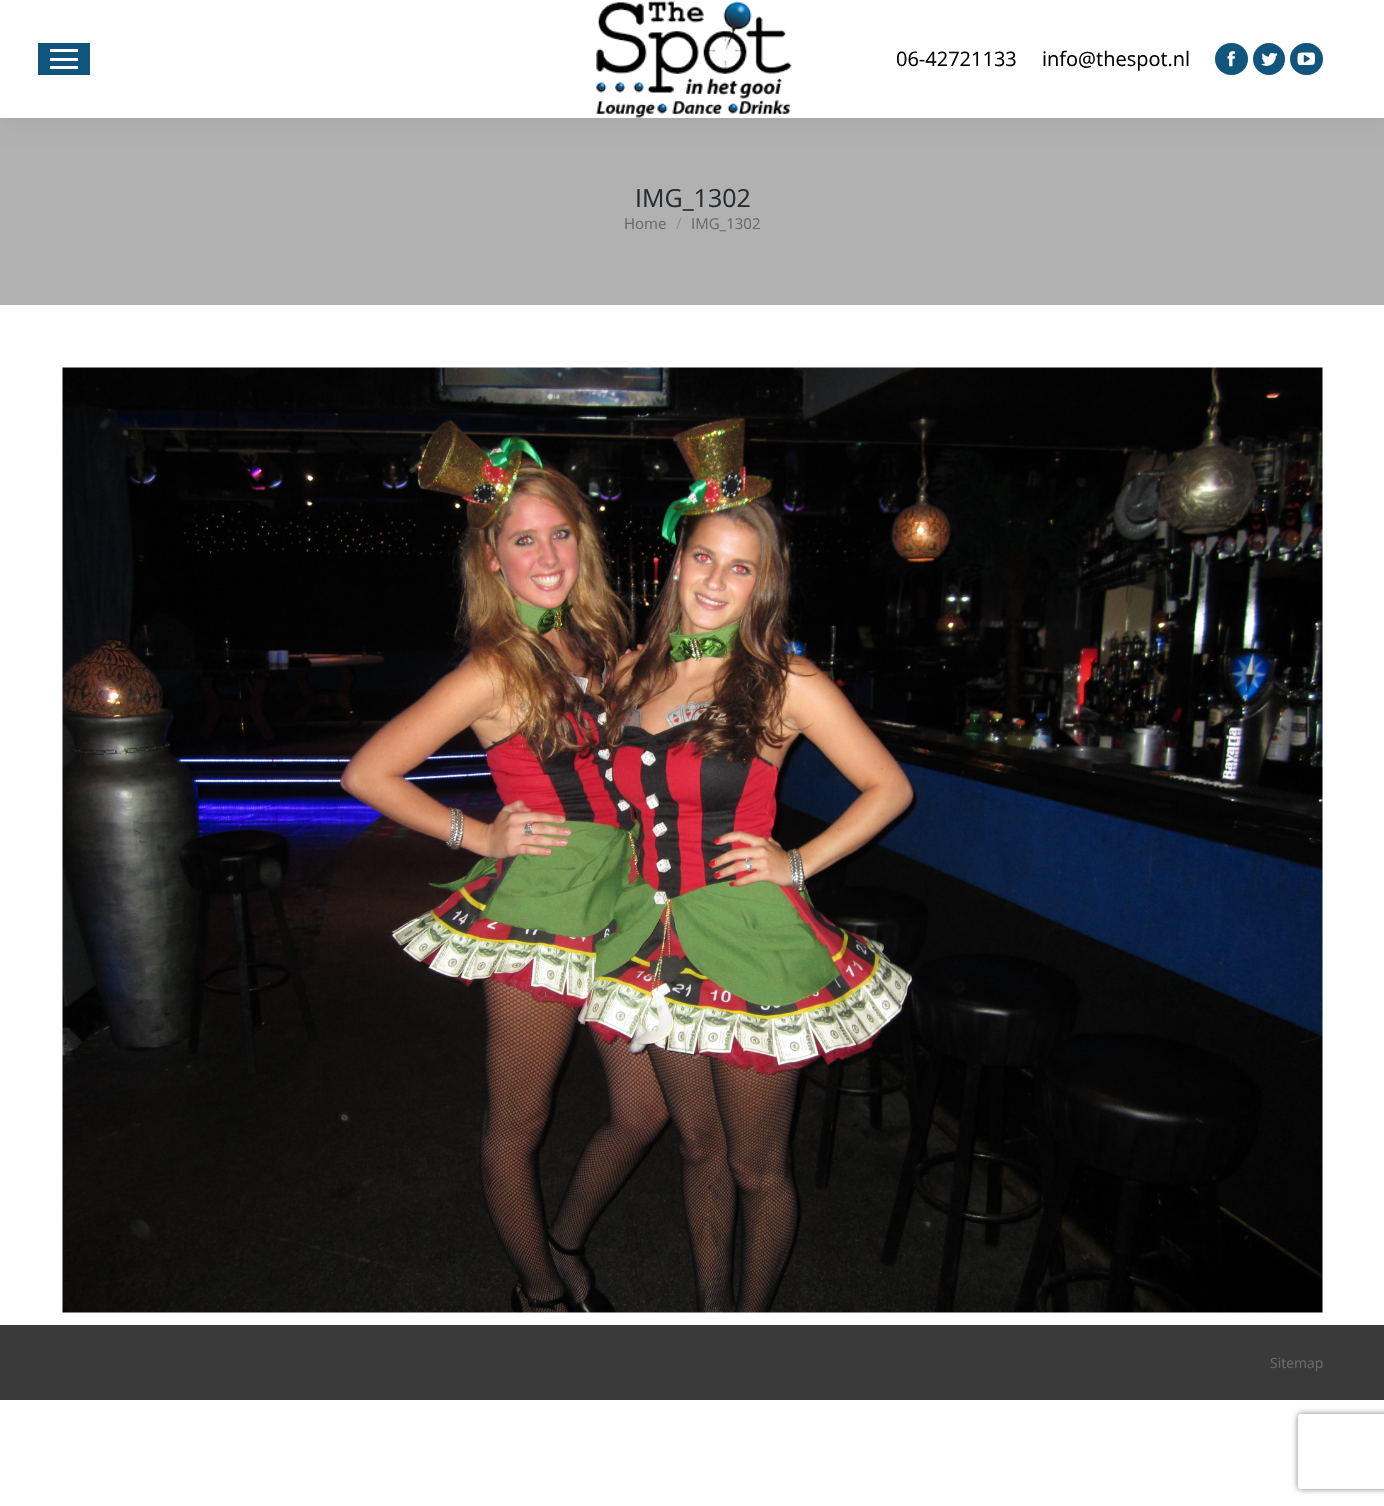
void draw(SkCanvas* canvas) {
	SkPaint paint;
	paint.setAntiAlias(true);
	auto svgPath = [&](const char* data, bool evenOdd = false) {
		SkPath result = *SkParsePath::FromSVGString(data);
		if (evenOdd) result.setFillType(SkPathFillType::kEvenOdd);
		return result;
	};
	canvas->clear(0xffffffff);
	paint.setColor(0xffb1b1b1);
	canvas->drawRect(SkRect::MakeXYWH(0, 118, 1384, 187), paint);
	paint.setColor(0x12000000);
	paint.setMaskFilter(SkMaskFilter::MakeBlur(kNormal_SkBlurStyle, 9.5));
	canvas->drawRect(SkRect::MakeXYWH(-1, -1, 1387, 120), paint);
	paint.setMaskFilter(nullptr);
	paint.setColor(0xffffffff);
	canvas->drawRect(SkRect::MakeXYWH(0, 0, 1384, 118), paint);
	paint.setColor(0xff11557c);
	canvas->drawRect(SkRect::MakeXYWH(38, 43, 52, 32), paint);
	paint.setColor(0xffffffff);
	canvas->drawRect(SkRect::MakeXYWH(50, 49, 28, 3), paint);
	canvas->drawRect(SkRect::MakeXYWH(50, 58, 28, 3), paint);
	canvas->drawRect(SkRect::MakeXYWH(50, 66, 28, 3), paint);
	canvas->drawImageRect(SkImages::DeferredFromEncodedData(SkData::MakeFromFileName("img1.png")), SkRect::MakeXYWH(596, 1, 196, 117), SkSamplingOptions());
	SkFont f1(fontMgr->matchFamilyStyle("Open Sans", SkFontStyle::Normal()), 20);
	f1.setSubpixel(true);
	paint.setColor(0xff000000);
	canvas->drawString("06-42721133", 896, 66, f1, paint);
	canvas->drawString("info@thespot.nl", 1042, 66, f1, paint);
	paint.setColor(0xff11557c);
	canvas->drawRoundRect(SkRect::MakeXYWH(1215, 43, 33, 32), 16, 16, paint);
	canvas->drawImageRect(SkImages::DeferredFromEncodedData(SkData::MakeFromFileName("img2.png")), SkRect::MakeXYWH(1227, 51, 8, 16), SkSamplingOptions());
	canvas->drawCircle(1269, 59, 16, paint);
	canvas->drawImageRect(SkImages::DeferredFromEncodedData(SkData::MakeFromFileName("img3.png")), SkRect::MakeXYWH(1261, 52, 17, 14), SkSamplingOptions());
	canvas->drawRoundRect(SkRect::MakeXYWH(1290, 43, 33, 32), 16, 16, paint);
	canvas->drawImageRect(SkImages::DeferredFromEncodedData(SkData::MakeFromFileName("img4.png")), SkRect::MakeXYWH(1297, 52, 18, 13), SkSamplingOptions());
	SkFont f2(fontMgr->matchFamilyStyle("Open Sans", SkFontStyle::Normal()), 25);
	f2.setSubpixel(true);
	paint.setColor(0xff262b2e);
	canvas->drawString("IMG_1302", 635, 207, f2, paint);
	SkFont f3(fontMgr->matchFamilyStyle("Open Sans", SkFontStyle::Normal()), 15);
	f3.setSubpixel(true);
	paint.setColor(0xff676b6d);
	canvas->drawString("Home", 624, 229, f3, paint);
	paint.setColor(0xff8c8e8f);
	canvas->drawString("/", 676, 229, f3, paint);
	paint.setColor(0xff676b6d);
	canvas->drawString("IMG_1302", 691, 229, f3, paint);
	canvas->drawImageRect(SkImages::DeferredFromEncodedData(SkData::MakeFromFileName("img5.png")), SkRect::MakeXYWH(62, 367, 1261, 946), SkSamplingOptions());
	paint.setColor(0xff3a3a3a);
	canvas->drawRect(SkRect::MakeXYWH(0, 1325, 1384, 75), paint);
	SkFont f4(fontMgr->matchFamilyStyle("Open Sans", SkFontStyle::Normal()), 14);
	f4.setSubpixel(true);
	paint.setColor(0xff676b6d);
	canvas->drawString("Sitemap", 1270, 1368, f4, paint);
	canvas->save();
	canvas->clipPath(svgPath("M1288 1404H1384V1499H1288ZM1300.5 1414H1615.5C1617 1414 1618 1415 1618 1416.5V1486.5C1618 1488 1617 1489 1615.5 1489H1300.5C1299 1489 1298 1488 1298 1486.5V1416.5C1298 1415 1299 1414 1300.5 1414Z", true), true);
	paint.setColor(0xff808080);
	paint.setMaskFilter(SkMaskFilter::MakeBlur(kNormal_SkBlurStyle, 3));
	canvas->drawRoundRect(SkRect::MakeXYWH(1298, 1414, 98, 75), 2.5, 2.5, paint);
	paint.setMaskFilter(nullptr);
	canvas->restore();
}
